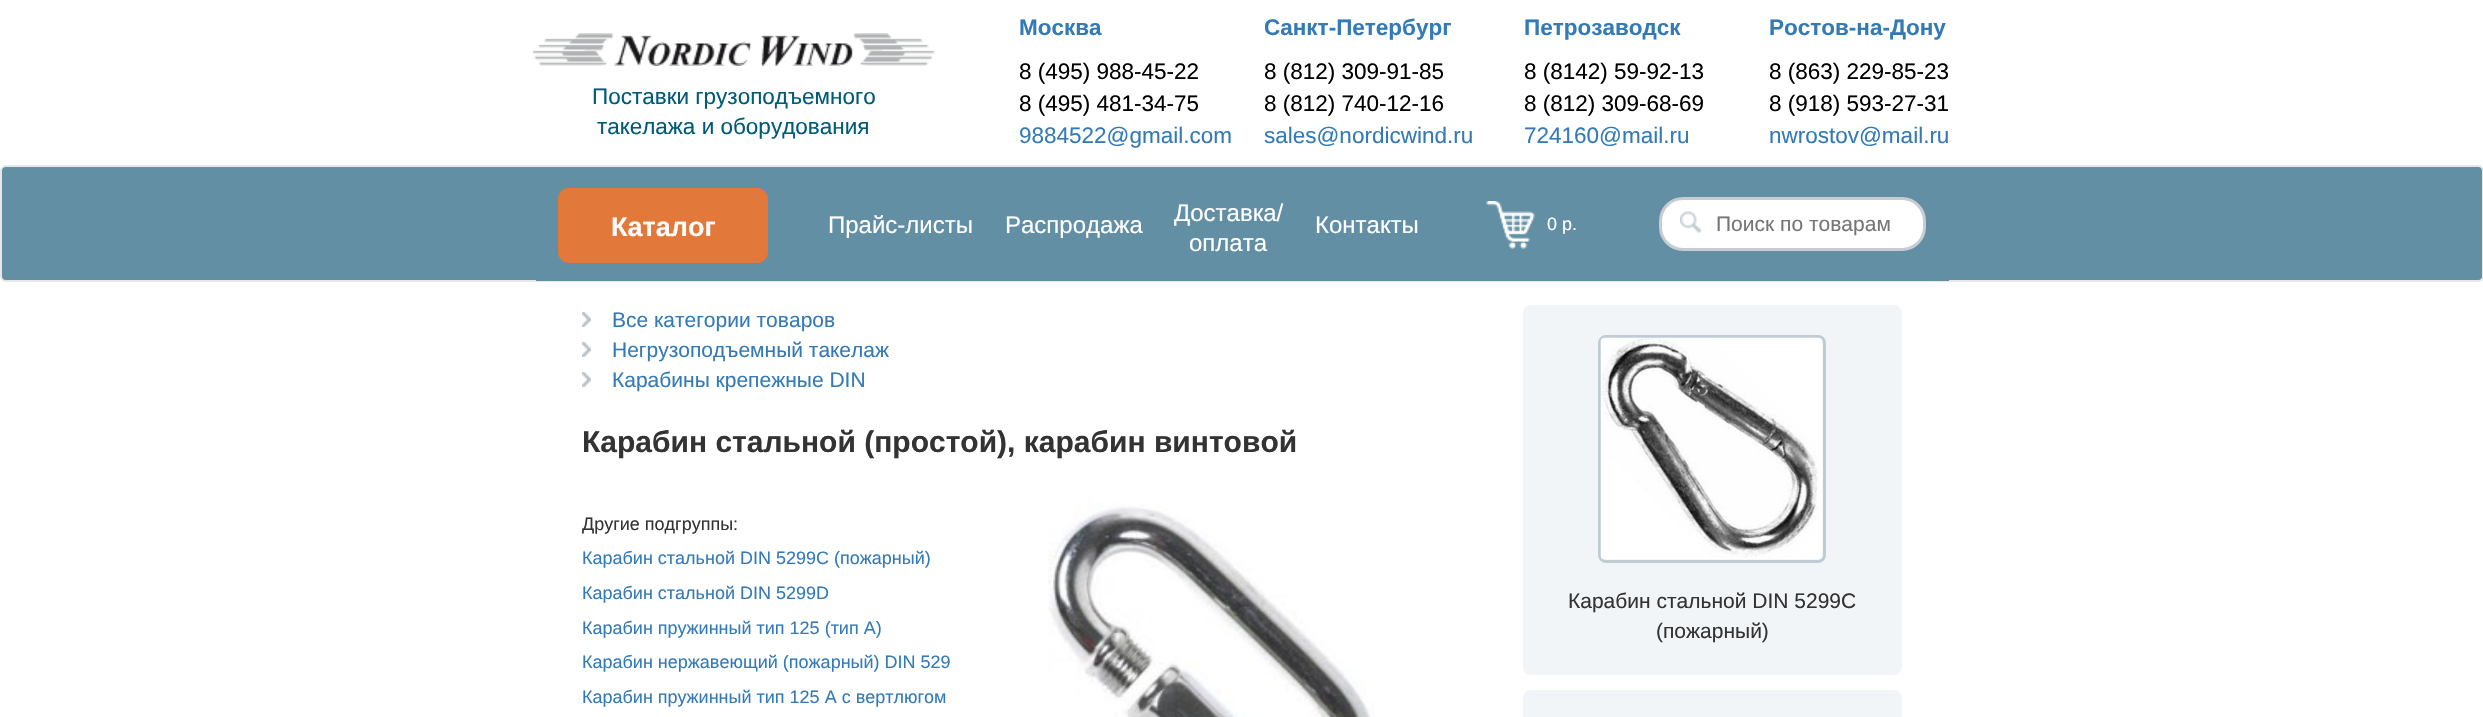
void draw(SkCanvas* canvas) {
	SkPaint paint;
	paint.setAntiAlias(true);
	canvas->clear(0xffffffff);
	canvas->drawImageRect(SkImages::DeferredFromEncodedData(SkData::MakeFromFileName("img1.png")), SkRect::MakeXYWH(532, 33, 403, 33), SkSamplingOptions());
	SkFont f1(fontMgr->matchFamilyStyle("Liberation Sans", SkFontStyle::Normal()), 22.5);
	f1.setSubpixel(true);
	paint.setColor(0xff005b79);
	canvas->drawString("Поставки грузоподъемного", 592, 104, f1, paint);
	canvas->drawString("такелажа и оборудования", 597, 134, f1, paint);
	SkFont f2(fontMgr->matchFamilyStyle("Liberation Sans", SkFontStyle::Bold()), 22.5);
	f2.setSubpixel(true);
	paint.setColor(0xff337ab7);
	canvas->drawString("Москва", 1019, 35, f2, paint);
	paint.setColor(0xff000000);
	canvas->drawString("8 (495) 988-45-22", 1019, 79, f1, paint);
	canvas->drawString("8 (495) 481-34-75", 1019, 111, f1, paint);
	paint.setColor(0xff337ab7);
	canvas->drawString("9884522@gmail.com", 1019, 143, f1, paint);
	canvas->drawString("Санкт-Петербург", 1264, 35, f2, paint);
	paint.setColor(0xff000000);
	canvas->drawString("8 (812) 309-91-85", 1264, 79, f1, paint);
	canvas->drawString("8 (812) 740-12-16", 1264, 111, f1, paint);
	paint.setColor(0xff337ab7);
	canvas->drawString("sales@nordicwind.ru", 1264, 143, f1, paint);
	canvas->drawString("Петрозаводск", 1524, 35, f2, paint);
	paint.setColor(0xff000000);
	canvas->drawString("8 (8142) 59-92-13", 1524, 79, f1, paint);
	canvas->drawString("8 (812) 309-68-69", 1524, 111, f1, paint);
	paint.setColor(0xff337ab7);
	canvas->drawString("724160@mail.ru", 1524, 143, f1, paint);
	canvas->drawString("Ростов-на-Дону", 1769, 35, f2, paint);
	paint.setColor(0xff000000);
	canvas->drawString("8 (863) 229-85-23", 1769, 79, f1, paint);
	canvas->drawString("8 (918) 593-27-31", 1769, 111, f1, paint);
	paint.setColor(0xff337ab7);
	canvas->drawString("nwrostov@mail.ru", 1769, 143, f1, paint);
	paint.setColor(0xff628fa4);
	canvas->drawRoundRect(SkRect::MakeXYWH(1, 166, 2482, 115), 5, 5, paint);
	paint.setStroke(true);
	paint.setStrokeWidth(2);
	paint.setColor(0xffe7e7e7);
	canvas->drawRoundRect(SkRect::MakeXYWH(1, 166, 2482, 115), 5, 5, paint);
	paint.setStroke(false);
	paint.setColor(0xff628fa4);
	canvas->drawRect(SkRect::MakeXYWH(536, 280, 1413, 1), paint);
	paint.setColor(0xffe2783a);
	canvas->drawRoundRect(SkRect::MakeXYWH(558, 188, 210, 75), 11, 11, paint);
	SkFont f3(fontMgr->matchFamilyStyle("Liberation Sans", SkFontStyle::Bold()), 27);
	f3.setSubpixel(true);
	paint.setColor(0xffffffff);
	canvas->drawString("Каталог", 611, 236, f3, paint);
	SkFont f4(fontMgr->matchFamilyStyle("Liberation Sans", SkFontStyle::Normal()), 24);
	f4.setSubpixel(true);
	canvas->drawString("Прайс-листы", 828, 233, f4, paint);
	canvas->drawString("Распродажа", 1005, 233, f4, paint);
	canvas->drawString("Доставка/", 1174, 221, f4, paint);
	canvas->drawString("оплата", 1189, 251, f4, paint);
	canvas->drawString("Контакты", 1315, 233, f4, paint);
	canvas->drawImageRect(SkImages::DeferredFromEncodedData(SkData::MakeFromFileName("img2.png")), SkRect::MakeXYWH(1486, 201, 49, 48), SkSamplingOptions());
	SkFont f5(fontMgr->matchFamilyStyle("Liberation Sans", SkFontStyle::Normal()), 18);
	f5.setSubpixel(true);
	canvas->drawString("0 р.", 1547, 230, f5, paint);
	canvas->drawRoundRect(SkRect::MakeXYWH(1660.5, 198.5, 264, 51), 22.5, 22.5, paint);
	paint.setStroke(true);
	paint.setStrokeWidth(3);
	paint.setColor(0xffc6ccd2);
	canvas->drawRoundRect(SkRect::MakeXYWH(1660.5, 198.5, 264, 51), 22.5, 22.5, paint);
	canvas->drawImageRect(SkImages::DeferredFromEncodedData(SkData::MakeFromFileName("img3.png")), SkRect::MakeXYWH(1680, 211, 21, 22), SkSamplingOptions());
	SkFont f6(fontMgr->matchFamilyStyle("Liberation Sans", SkFontStyle::Normal()), 21);
	f6.setSubpixel(true);
	paint.setStroke(false);
	paint.setColor(0xff757575);
	canvas->drawString("Поиск по товарам", 1716, 231, f6, paint);
	canvas->drawImageRect(SkImages::DeferredFromEncodedData(SkData::MakeFromFileName("img4.png")), SkRect::MakeXYWH(582, 312, 9, 15), SkSamplingOptions());
	paint.setColor(0xff337ab7);
	canvas->drawString("Все категории товаров", 612, 327, f6, paint);
	canvas->drawImageRect(SkImages::DeferredFromEncodedData(SkData::MakeFromFileName("img4.png")), SkRect::MakeXYWH(582, 342, 9, 15), SkSamplingOptions());
	canvas->drawString("Негрузоподъемный такелаж", 612, 357, f6, paint);
	canvas->drawImageRect(SkImages::DeferredFromEncodedData(SkData::MakeFromFileName("img4.png")), SkRect::MakeXYWH(582, 372, 9, 15), SkSamplingOptions());
	canvas->drawString("Карабины крепежные DIN", 612, 387, f6, paint);
	SkFont f7(fontMgr->matchFamilyStyle("Liberation Sans", SkFontStyle::Bold()), 30);
	f7.setSubpixel(true);
	paint.setColor(0xff333333);
	canvas->drawString("Карабин стальной (простой), карабин винтовой", 582, 452, f7, paint);
	canvas->drawString("Другие подгруппы:", 582, 530, f5, paint);
	paint.setColor(0xff337ab7);
	canvas->drawString("Карабин стальной DIN 5299С (пожарный)", 582, 564, f5, paint);
	canvas->drawString("Карабин стальной DIN 5299D", 582, 599, f5, paint);
	canvas->drawString("Карабин пружинный тип 125 (тип А)", 582, 634, f5, paint);
	canvas->drawString("Карабин нержавеющий (пожарный) DIN 529", 582, 668, f5, paint);
	canvas->drawString("Карабин пружинный тип 125 А с вертлюгом", 582, 703, f5, paint);
	canvas->drawImageRect(SkImages::DeferredFromEncodedData(SkData::MakeFromFileName("img5.png")), SkRect::MakeXYWH(1048, 503, 327, 214), SkSamplingOptions());
	paint.setColor(0xfff2f5f8);
	canvas->drawRoundRect(SkRect::MakeXYWH(1523, 305, 379, 370), 8, 8, paint);
	paint.setStroke(true);
	paint.setColor(0xffc0ccd3);
	canvas->drawRoundRect(SkRect::MakeXYWH(1599.5, 336.5, 225, 225), 6.5, 6.5, paint);
	canvas->drawImageRect(SkImages::DeferredFromEncodedData(SkData::MakeFromFileName("img6.png")), SkRect::MakeXYWH(1600, 337, 223, 223), SkSamplingOptions());
	paint.setStroke(false);
	paint.setColor(0xff333333);
	canvas->drawString("Карабин стальной DIN 5299С", 1568, 608, f6, paint);
	canvas->drawString("(пожарный)", 1656, 638, f6, paint);
	paint.setColor(0xfff2f5f8);
	canvas->drawRoundRect(SkRect::MakeXYWH(1523, 690, 379, 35), 8, 8, paint);
}
